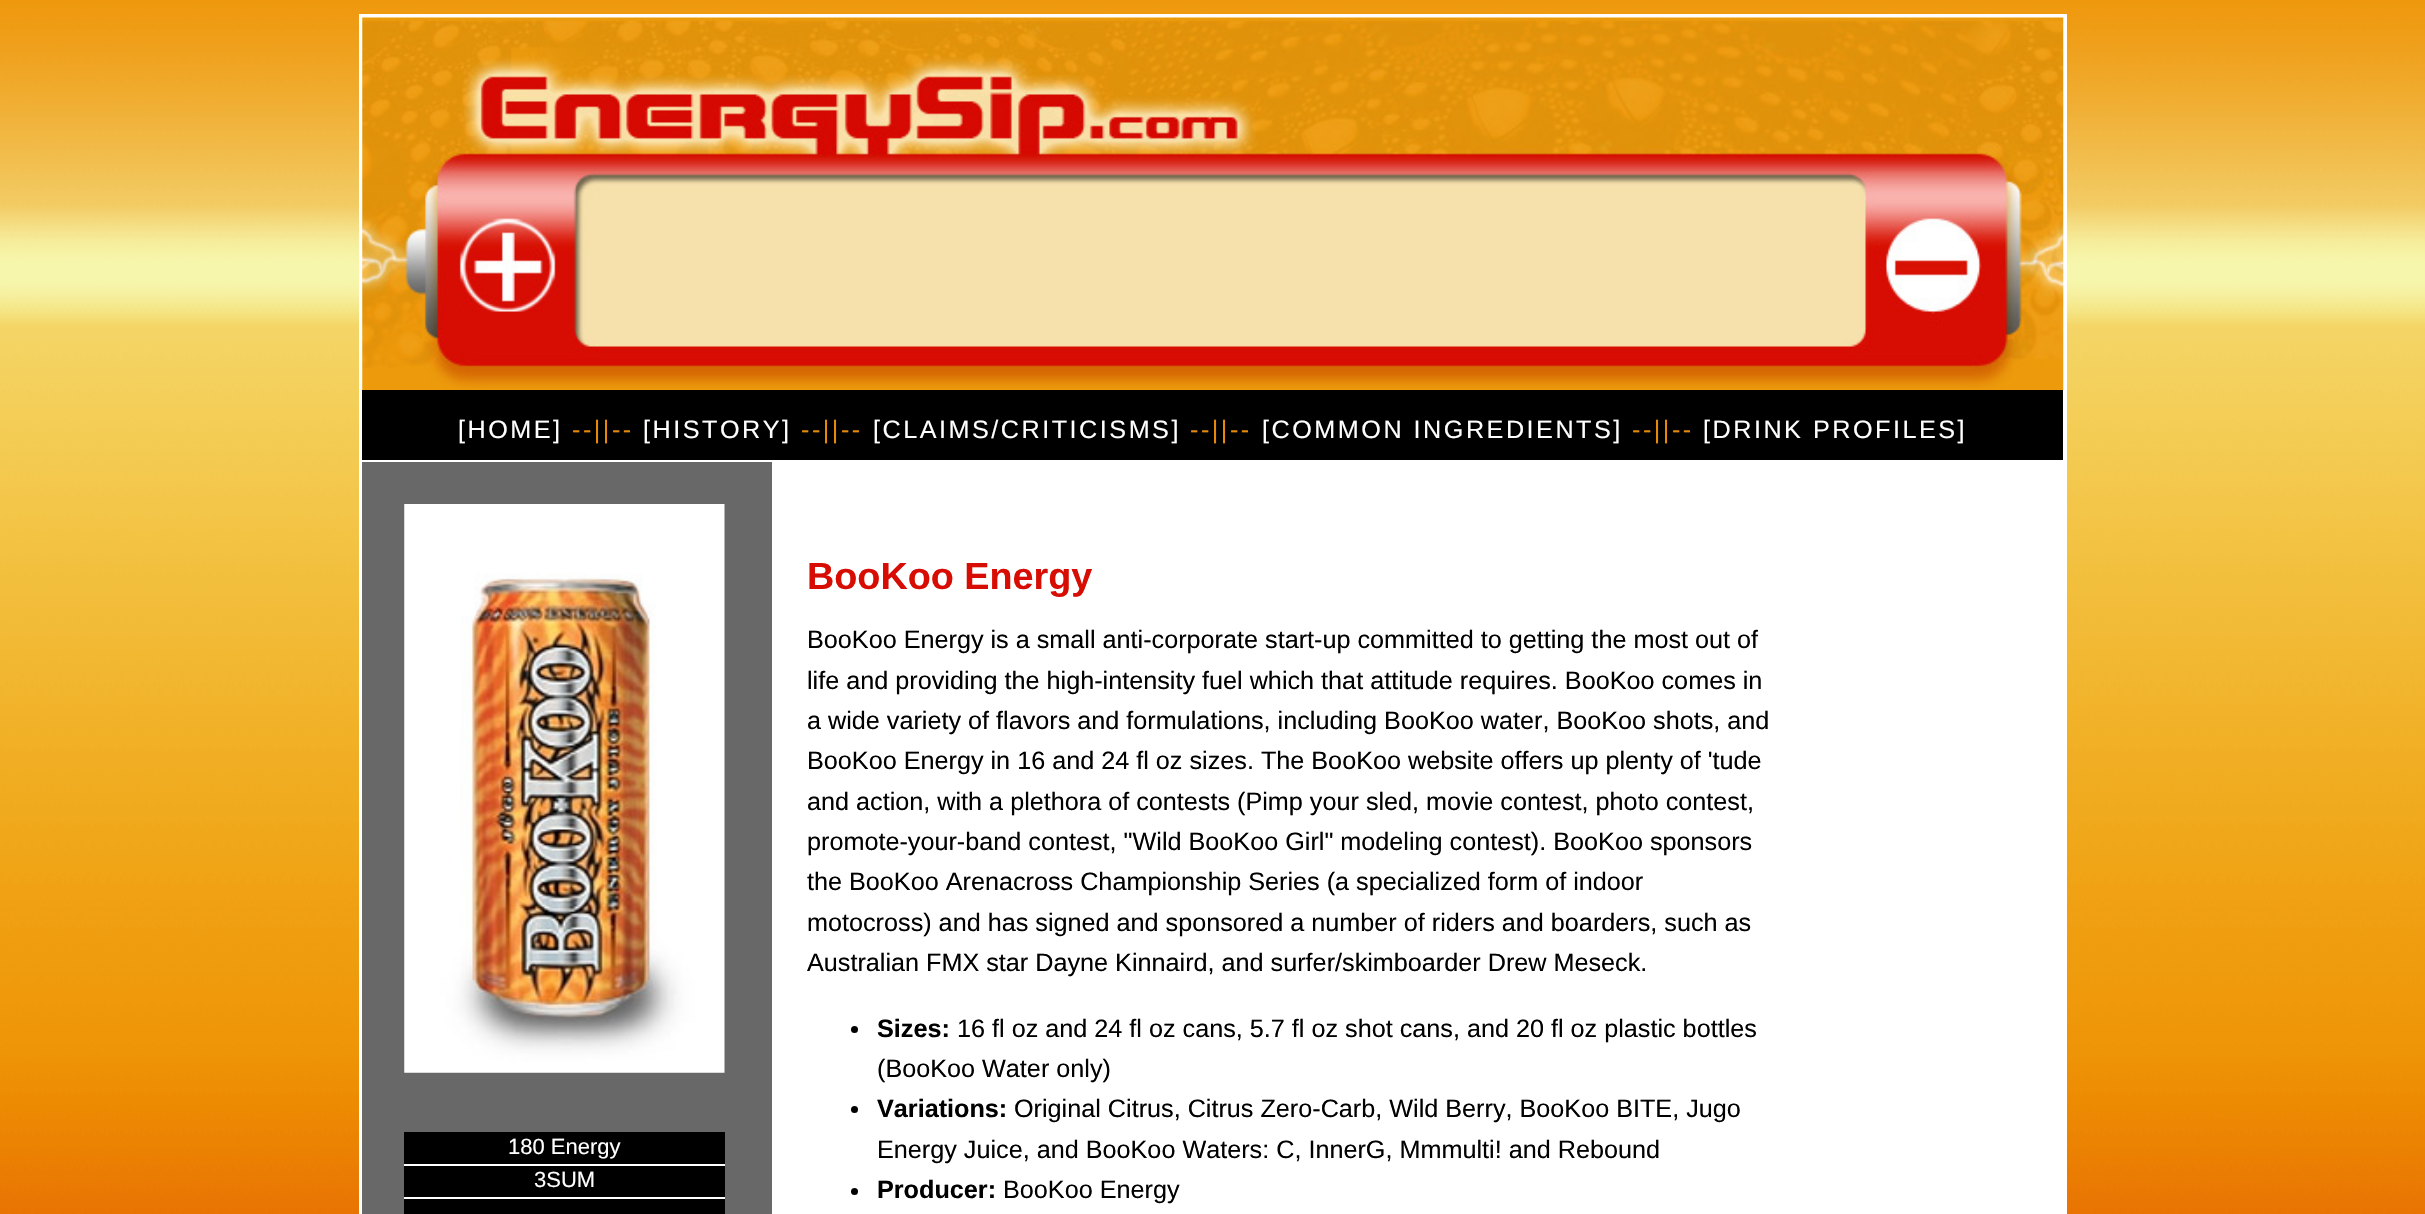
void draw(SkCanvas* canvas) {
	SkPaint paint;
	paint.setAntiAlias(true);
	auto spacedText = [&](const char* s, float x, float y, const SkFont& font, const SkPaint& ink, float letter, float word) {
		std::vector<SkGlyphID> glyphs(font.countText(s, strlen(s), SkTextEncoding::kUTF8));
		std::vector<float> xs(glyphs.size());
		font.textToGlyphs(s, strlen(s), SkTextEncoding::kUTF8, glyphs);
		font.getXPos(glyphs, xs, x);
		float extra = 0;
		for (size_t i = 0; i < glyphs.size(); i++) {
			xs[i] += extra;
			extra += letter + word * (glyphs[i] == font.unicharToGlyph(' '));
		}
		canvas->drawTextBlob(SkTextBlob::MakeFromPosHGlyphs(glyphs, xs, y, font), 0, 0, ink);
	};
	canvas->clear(0xffffffff);
	canvas->drawImageRect(SkImages::DeferredFromEncodedData(SkData::MakeFromFileName("img1.png")), SkRect::MakeXYWH(0, 0, 2425, 1214), SkSamplingOptions());
	paint.setStroke(true);
	paint.setStrokeWidth(4);
	paint.setColor(0xffffffff);
	canvas->drawRect(SkRect::MakeXYWH(361, 16, 1704, 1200), paint);
	canvas->drawImageRect(SkImages::DeferredFromEncodedData(SkData::MakeFromFileName("img2.png")), SkRect::MakeXYWH(362, 17, 1702, 374), SkSamplingOptions());
	paint.setStroke(false);
	paint.setColor(0xff000000);
	canvas->drawRect(SkRect::MakeXYWH(362, 390, 1701, 70), paint);
	paint.setColor(0xffffffff);
	canvas->drawRect(SkRect::MakeXYWH(362, 460, 1701, 2), paint);
	SkFont f1(fontMgr->matchFamilyStyle("Liberation Sans", SkFontStyle::Normal()), 25.2);
	f1.setSubpixel(true);
	spacedText("[HOME]", 458, 438, f1, paint, 2.5, 0);
	paint.setColor(0xffe5890a);
	spacedText("--||--", 572, 438, f1, paint, 2.5, 0);
	paint.setColor(0xffffffff);
	spacedText("[HISTORY]", 643, 438, f1, paint, 2.5, 0);
	paint.setColor(0xffe5890a);
	spacedText("--||--", 801, 438, f1, paint, 2.5, 0);
	paint.setColor(0xffffffff);
	spacedText("[CLAIMS/CRITICISMS]", 873, 438, f1, paint, 2.5, 0);
	paint.setColor(0xffe5890a);
	spacedText("--||--", 1190, 438, f1, paint, 2.5, 0);
	paint.setColor(0xffffffff);
	spacedText("[COMMON INGREDIENTS]", 1262, 438, f1, paint, 2.5, 0);
	paint.setColor(0xffe5890a);
	spacedText("--||--", 1632, 438, f1, paint, 2.5, 0);
	paint.setColor(0xffffffff);
	spacedText("[DRINK PROFILES]", 1703, 438, f1, paint, 2.5, 0);
	paint.setColor(0xff696868);
	canvas->drawRect(SkRect::MakeXYWH(362, 462, 410, 752), paint);
	canvas->drawImageRect(SkImages::DeferredFromEncodedData(SkData::MakeFromFileName("img3.png")), SkRect::MakeXYWH(404, 504, 321, 569), SkSamplingOptions());
	paint.setColor(0xff000000);
	canvas->drawRect(SkRect::MakeXYWH(404, 1132, 321, 32), paint);
	paint.setColor(0xffffffff);
	canvas->drawRect(SkRect::MakeXYWH(404, 1164, 321, 2), paint);
	SkFont f2(fontMgr->matchFamilyStyle("Liberation Sans", SkFontStyle::Normal()), 22);
	f2.setSubpixel(true);
	canvas->drawString("180 Energy", 508, 1154, f2, paint);
	paint.setColor(0xff000000);
	canvas->drawRect(SkRect::MakeXYWH(404, 1166, 321, 31), paint);
	paint.setColor(0xffffffff);
	canvas->drawRect(SkRect::MakeXYWH(404, 1197, 321, 2), paint);
	canvas->drawString("3SUM", 534, 1187, f2, paint);
	paint.setColor(0xff000000);
	canvas->drawRect(SkRect::MakeXYWH(404, 1199, 321, 15), paint);
	paint.setColor(0xffffffff);
	canvas->drawRect(SkRect::MakeXYWH(772, 462, 1291, 752), paint);
	SkFont f3(fontMgr->matchFamilyStyle("Liberation Sans", SkFontStyle::Bold()), 37.75);
	f3.setSubpixel(true);
	paint.setColor(0xffd70d03);
	canvas->drawString("BooKoo Energy", 807, 589, f3, paint);
	paint.setColor(0xff000000);
	canvas->drawString("BooKoo Energy is a small anti-corporate start-up committed to getting the most out of", 807, 648, f1, paint);
	canvas->drawString("life and providing the high-intensity fuel which that attitude requires. BooKoo comes in", 807, 689, f1, paint);
	canvas->drawString("a wide variety of flavors and formulations, including BooKoo water, BooKoo shots, and", 807, 729, f1, paint);
	canvas->drawString("BooKoo Energy in 16 and 24 fl oz sizes. The BooKoo website offers up plenty of 'tude", 807, 769, f1, paint);
	canvas->drawString("and action, with a plethora of contests (Pimp your sled, movie contest, photo contest,", 807, 810, f1, paint);
	canvas->drawString("promote-your-band contest, \"Wild BooKoo Girl\" modeling contest). BooKoo sponsors", 807, 850, f1, paint);
	canvas->drawString("the BooKoo Arenacross Championship Series (a specialized form of indoor", 807, 890, f1, paint);
	canvas->drawString("motocross) and has signed and sponsored a number of riders and boarders, such as", 807, 931, f1, paint);
	canvas->drawString("Australian FMX star Dayne Kinnaird, and surfer/skimboarder Drew Meseck.", 807, 971, f1, paint);
	canvas->drawCircle(854.5, 1029.5, 3.5, paint);
	SkFont f4(fontMgr->matchFamilyStyle("Liberation Sans", SkFontStyle::Bold()), 25.2);
	f4.setSubpixel(true);
	canvas->drawString("Sizes:", 877, 1037, f4, paint);
	canvas->drawString("16 fl oz and 24 fl oz cans, 5.7 fl oz shot cans, and 20 fl oz plastic bottles", 957, 1037, f1, paint);
	canvas->drawString("(BooKoo Water only)", 877, 1077, f1, paint);
	canvas->drawCircle(854.5, 1109.5, 3.5, paint);
	canvas->drawString("Variations:", 877, 1117, f4, paint);
	canvas->drawString("Original Citrus, Citrus Zero-Carb, Wild Berry, BooKoo BITE, Jugo", 1014, 1117, f1, paint);
	canvas->drawString("Energy Juice, and BooKoo Waters: C, InnerG, Mmmulti! and Rebound", 877, 1158, f1, paint);
	canvas->drawCircle(854.5, 1191.5, 3.5, paint);
	canvas->drawString("Producer:", 877, 1198, f4, paint);
	canvas->drawString("BooKoo Energy", 1003, 1198, f1, paint);
}
